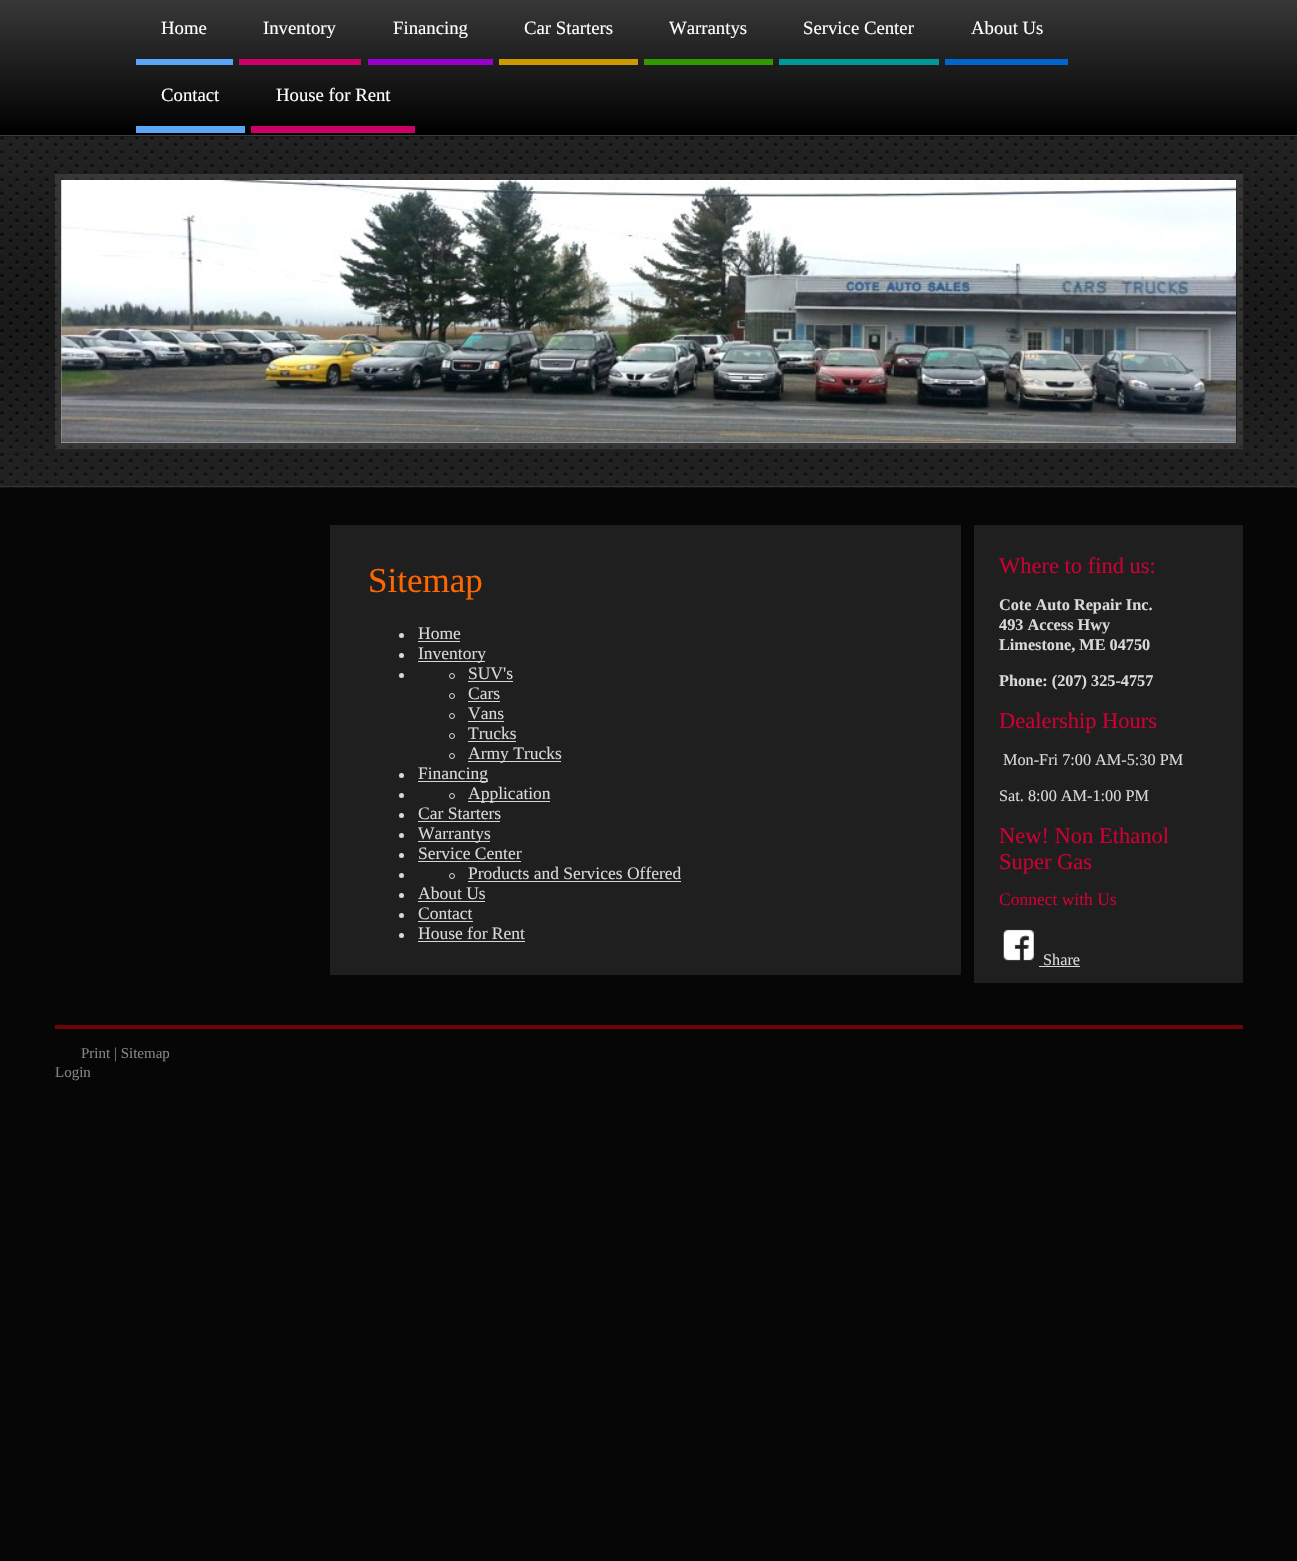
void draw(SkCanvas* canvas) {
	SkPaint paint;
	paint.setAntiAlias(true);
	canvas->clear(0xff060606);
	{
		const SkColor colors[] = {0xff383838, 0xff000000};
		const float stops[] = {0, 1};
		const SkPoint ends[] = {{649, 0}, {649, 135}};
		paint.setShader(SkGradientShader::MakeLinear(ends, colors, stops, 2, SkTileMode::kClamp));
		paint.setAlpha(255);
	}
	canvas->drawRect(SkRect::MakeXYWH(0, 0, 1297, 135), paint);
	paint.setShader(nullptr);
	paint.setColor(0xff3d3d3d);
	canvas->drawRect(SkRect::MakeXYWH(0, 135, 1297, 1), paint);
	paint.setColor(0xff5ca6fa);
	canvas->drawRect(SkRect::MakeXYWH(136, 59, 97, 6), paint);
	SkFont f1(fontMgr->matchFamilyStyle("Liberation Serif", SkFontStyle::Normal()), 18.75);
	f1.setSubpixel(true);
	paint.setColor(0xffffffff);
	canvas->drawString("Home", 161, 34, f1, paint);
	paint.setColor(0xffcc0066);
	canvas->drawRect(SkRect::MakeXYWH(239, 59, 122, 6), paint);
	paint.setColor(0xffffffff);
	canvas->drawString("Inventory", 263, 34, f1, paint);
	paint.setColor(0xff9900cc);
	canvas->drawRect(SkRect::MakeXYWH(368, 59, 125, 6), paint);
	paint.setColor(0xffffffff);
	canvas->drawString("Financing", 393, 34, f1, paint);
	paint.setColor(0xffcc9900);
	canvas->drawRect(SkRect::MakeXYWH(499, 59, 139, 6), paint);
	paint.setColor(0xffffffff);
	canvas->drawString("Car Starters", 524, 34, f1, paint);
	paint.setColor(0xff339900);
	canvas->drawRect(SkRect::MakeXYWH(644, 59, 129, 6), paint);
	paint.setColor(0xffffffff);
	canvas->drawString("Warrantys", 669, 34, f1, paint);
	paint.setColor(0xff009999);
	canvas->drawRect(SkRect::MakeXYWH(779, 59, 160, 6), paint);
	paint.setColor(0xffffffff);
	canvas->drawString("Service Center", 803, 34, f1, paint);
	paint.setColor(0xff0066cc);
	canvas->drawRect(SkRect::MakeXYWH(945, 59, 123, 6), paint);
	paint.setColor(0xffffffff);
	canvas->drawString("About Us", 971, 34, f1, paint);
	paint.setColor(0xff5ca6fa);
	canvas->drawRect(SkRect::MakeXYWH(136, 126, 109, 7), paint);
	paint.setColor(0xffffffff);
	canvas->drawString("Contact", 161, 101, f1, paint);
	paint.setColor(0xffcc0066);
	canvas->drawRect(SkRect::MakeXYWH(251, 126, 164, 7), paint);
	paint.setColor(0xffffffff);
	canvas->drawString("House for Rent", 276, 101, f1, paint);
	canvas->drawImageRect(SkImages::DeferredFromEncodedData(SkData::MakeFromFileName("img1.png")), SkRect::MakeXYWH(0, 136, 1297, 352), SkSamplingOptions());
	paint.setColor(0xff353535);
	canvas->drawRect(SkRect::MakeXYWH(0, 486, 1297, 1), paint);
	paint.setStroke(true);
	paint.setStrokeWidth(6);
	paint.setColor(0x1affffff);
	canvas->drawRect(SkRect::MakeXYWH(58, 177, 1182, 269), paint);
	paint.setStroke(false);
	paint.setColor(0xffa0a0a0);
	canvas->drawRect(SkRect::MakeXYWH(61, 180, 1175, 263), paint);
	canvas->drawImageRect(SkImages::DeferredFromEncodedData(SkData::MakeFromFileName("img2.png")), SkRect::MakeXYWH(61, 180, 1176, 263), SkSamplingOptions());
	paint.setColor(0xff1f1f1f);
	canvas->drawRect(SkRect::MakeXYWH(330, 525, 631, 450), paint);
	SkFont f2(fontMgr->matchFamilyStyle("Liberation Serif", SkFontStyle::Normal()), 35);
	f2.setSubpixel(true);
	paint.setColor(0xffff6600);
	canvas->drawString("Sitemap", 368, 592, f2, paint);
	paint.setColor(0xffd9d9d9);
	canvas->drawCircle(401.5, 635.5, 2.5, paint);
	SkFont f3(fontMgr->matchFamilyStyle("Liberation Serif", SkFontStyle::Normal()), 17.5);
	f3.setSubpixel(true);
	paint.setColor(0xffd8d8d8);
	canvas->drawString("Home", 418, 639, f3, paint);
	canvas->drawRect(SkRect::MakeXYWH(418, 641, 42, 1), paint);
	paint.setColor(0xffd9d9d9);
	canvas->drawCircle(401.5, 655.5, 2.5, paint);
	paint.setColor(0xffd8d8d8);
	canvas->drawRect(SkRect::MakeXYWH(418, 661, 67, 1), paint);
	canvas->drawString("Inventory", 418, 659, f3, paint);
	paint.setColor(0xffd9d9d9);
	canvas->drawCircle(401.5, 675.5, 2.5, paint);
	paint.setStroke(true);
	paint.setStrokeWidth(1);
	canvas->drawCircle(452, 676, 2.5, paint);
	paint.setStroke(false);
	paint.setColor(0xffd8d8d8);
	canvas->drawString("SUV's", 468, 679, f3, paint);
	canvas->drawRect(SkRect::MakeXYWH(468, 681, 45, 1), paint);
	paint.setStroke(true);
	paint.setColor(0xffd9d9d9);
	canvas->drawCircle(452, 696, 2.5, paint);
	paint.setStroke(false);
	paint.setColor(0xffd8d8d8);
	canvas->drawString("Cars", 468, 699, f3, paint);
	canvas->drawRect(SkRect::MakeXYWH(468, 701, 32, 1), paint);
	paint.setStroke(true);
	paint.setColor(0xffd9d9d9);
	canvas->drawCircle(452, 716, 2.5, paint);
	paint.setStroke(false);
	paint.setColor(0xffd8d8d8);
	canvas->drawString("Vans", 468, 719, f3, paint);
	canvas->drawRect(SkRect::MakeXYWH(468, 721, 36, 1), paint);
	paint.setStroke(true);
	paint.setColor(0xffd9d9d9);
	canvas->drawCircle(452, 736, 2.5, paint);
	paint.setStroke(false);
	paint.setColor(0xffd8d8d8);
	canvas->drawString("Trucks", 468, 739, f3, paint);
	canvas->drawRect(SkRect::MakeXYWH(468, 741, 48, 1), paint);
	paint.setStroke(true);
	paint.setColor(0xffd9d9d9);
	canvas->drawCircle(452, 756, 2.5, paint);
	paint.setStroke(false);
	paint.setColor(0xffd8d8d8);
	canvas->drawRect(SkRect::MakeXYWH(468, 761, 93, 1), paint);
	canvas->drawString("Army Trucks", 468, 759, f3, paint);
	paint.setColor(0xffd9d9d9);
	canvas->drawCircle(401.5, 775.5, 2.5, paint);
	paint.setColor(0xffd8d8d8);
	canvas->drawRect(SkRect::MakeXYWH(418, 781, 70, 1), paint);
	canvas->drawString("Financing", 418, 779, f3, paint);
	paint.setColor(0xffd9d9d9);
	canvas->drawCircle(401.5, 795.5, 2.5, paint);
	paint.setStroke(true);
	canvas->drawCircle(452, 796, 2.5, paint);
	paint.setStroke(false);
	paint.setColor(0xffd8d8d8);
	canvas->drawRect(SkRect::MakeXYWH(468, 801, 82, 1), paint);
	canvas->drawString("Application", 468, 799, f3, paint);
	paint.setColor(0xffd9d9d9);
	canvas->drawCircle(401.5, 815.5, 2.5, paint);
	paint.setColor(0xffd8d8d8);
	canvas->drawString("Car Starters", 418, 819, f3, paint);
	canvas->drawRect(SkRect::MakeXYWH(418, 821, 82, 1), paint);
	paint.setColor(0xffd9d9d9);
	canvas->drawCircle(401.5, 835.5, 2.5, paint);
	paint.setColor(0xffd8d8d8);
	canvas->drawRect(SkRect::MakeXYWH(418, 841, 72, 1), paint);
	canvas->drawString("Warrantys", 418, 839, f3, paint);
	paint.setColor(0xffd9d9d9);
	canvas->drawCircle(401.5, 855.5, 2.5, paint);
	paint.setColor(0xffd8d8d8);
	canvas->drawString("Service Center", 418, 859, f3, paint);
	canvas->drawRect(SkRect::MakeXYWH(418, 861, 103, 1), paint);
	paint.setColor(0xffd9d9d9);
	canvas->drawCircle(401.5, 875.5, 2.5, paint);
	paint.setStroke(true);
	canvas->drawCircle(452, 876, 2.5, paint);
	paint.setStroke(false);
	paint.setColor(0xffd8d8d8);
	canvas->drawString("Products and Services Offered", 468, 879, f3, paint);
	canvas->drawRect(SkRect::MakeXYWH(468, 881, 213, 1), paint);
	paint.setColor(0xffd9d9d9);
	canvas->drawCircle(401.5, 895.5, 2.5, paint);
	paint.setColor(0xffd8d8d8);
	canvas->drawString("About Us", 418, 899, f3, paint);
	canvas->drawRect(SkRect::MakeXYWH(418, 901, 67, 1), paint);
	paint.setColor(0xffd9d9d9);
	canvas->drawCircle(401.5, 915.5, 2.5, paint);
	paint.setColor(0xffd8d8d8);
	canvas->drawString("Contact", 418, 919, f3, paint);
	canvas->drawRect(SkRect::MakeXYWH(418, 921, 55, 1), paint);
	paint.setColor(0xffd9d9d9);
	canvas->drawCircle(401.5, 935.5, 2.5, paint);
	paint.setColor(0xffd8d8d8);
	canvas->drawString("House for Rent", 418, 939, f3, paint);
	canvas->drawRect(SkRect::MakeXYWH(418, 941, 107, 1), paint);
	paint.setColor(0xff1f1f1f);
	canvas->drawRect(SkRect::MakeXYWH(974, 525, 269, 458), paint);
	SkFont f4(fontMgr->matchFamilyStyle("Liberation Serif", SkFontStyle::Normal()), 22.5);
	f4.setSubpixel(true);
	paint.setColor(0xffcc0033);
	canvas->drawString("Where to find us:", 999, 573, f4, paint);
	SkFont f5(fontMgr->matchFamilyStyle("Liberation Serif", SkFontStyle::Bold()), 16.25);
	f5.setSubpixel(true);
	paint.setColor(0xffd8d8d8);
	canvas->drawString("Cote Auto Repair Inc.", 999, 610, f5, paint);
	canvas->drawString("493 Access Hwy", 999, 630, f5, paint);
	canvas->drawString("Limestone, ME 04750", 999, 650, f5, paint);
	canvas->drawString("Phone: (207) 325-4757", 999, 686, f5, paint);
	paint.setColor(0xffcc0033);
	canvas->drawString("Dealership Hours", 999, 728, f4, paint);
	SkFont f6(fontMgr->matchFamilyStyle("Liberation Serif", SkFontStyle::Normal()), 16.25);
	f6.setSubpixel(true);
	paint.setColor(0xffd8d8d8);
	canvas->drawString("Mon-Fri 7:00 AM-5:30 PM", 1003, 765, f6, paint);
	canvas->drawString("Sat. 8:00 AM-1:00 PM", 999, 801, f6, paint);
	paint.setColor(0xffcc0033);
	canvas->drawString("New! Non Ethanol", 999, 843, f4, paint);
	canvas->drawString("Super Gas", 999, 869, f4, paint);
	canvas->drawString("Connect with Us", 999, 905, f3, paint);
	canvas->drawImageRect(SkImages::DeferredFromEncodedData(SkData::MakeFromFileName("img3.png")), SkRect::MakeXYWH(1003, 929, 31, 32), SkSamplingOptions());
	paint.setColor(0xffd8d8d8);
	canvas->drawString("Share", 1043, 965, f6, paint);
	canvas->drawRect(SkRect::MakeXYWH(1039, 966, 41, 1), paint);
	paint.setColor(0xff6c0606);
	canvas->drawRect(SkRect::MakeXYWH(55, 1025, 1188, 4), paint);
	SkFont f7(fontMgr->matchFamilyStyle("Liberation Serif", SkFontStyle::Normal()), 15);
	f7.setSubpixel(true);
	paint.setColor(0xff838383);
	canvas->drawString("Print | Sitemap", 81, 1058, f7, paint);
	canvas->drawString("Login", 55, 1077, f7, paint);
}
